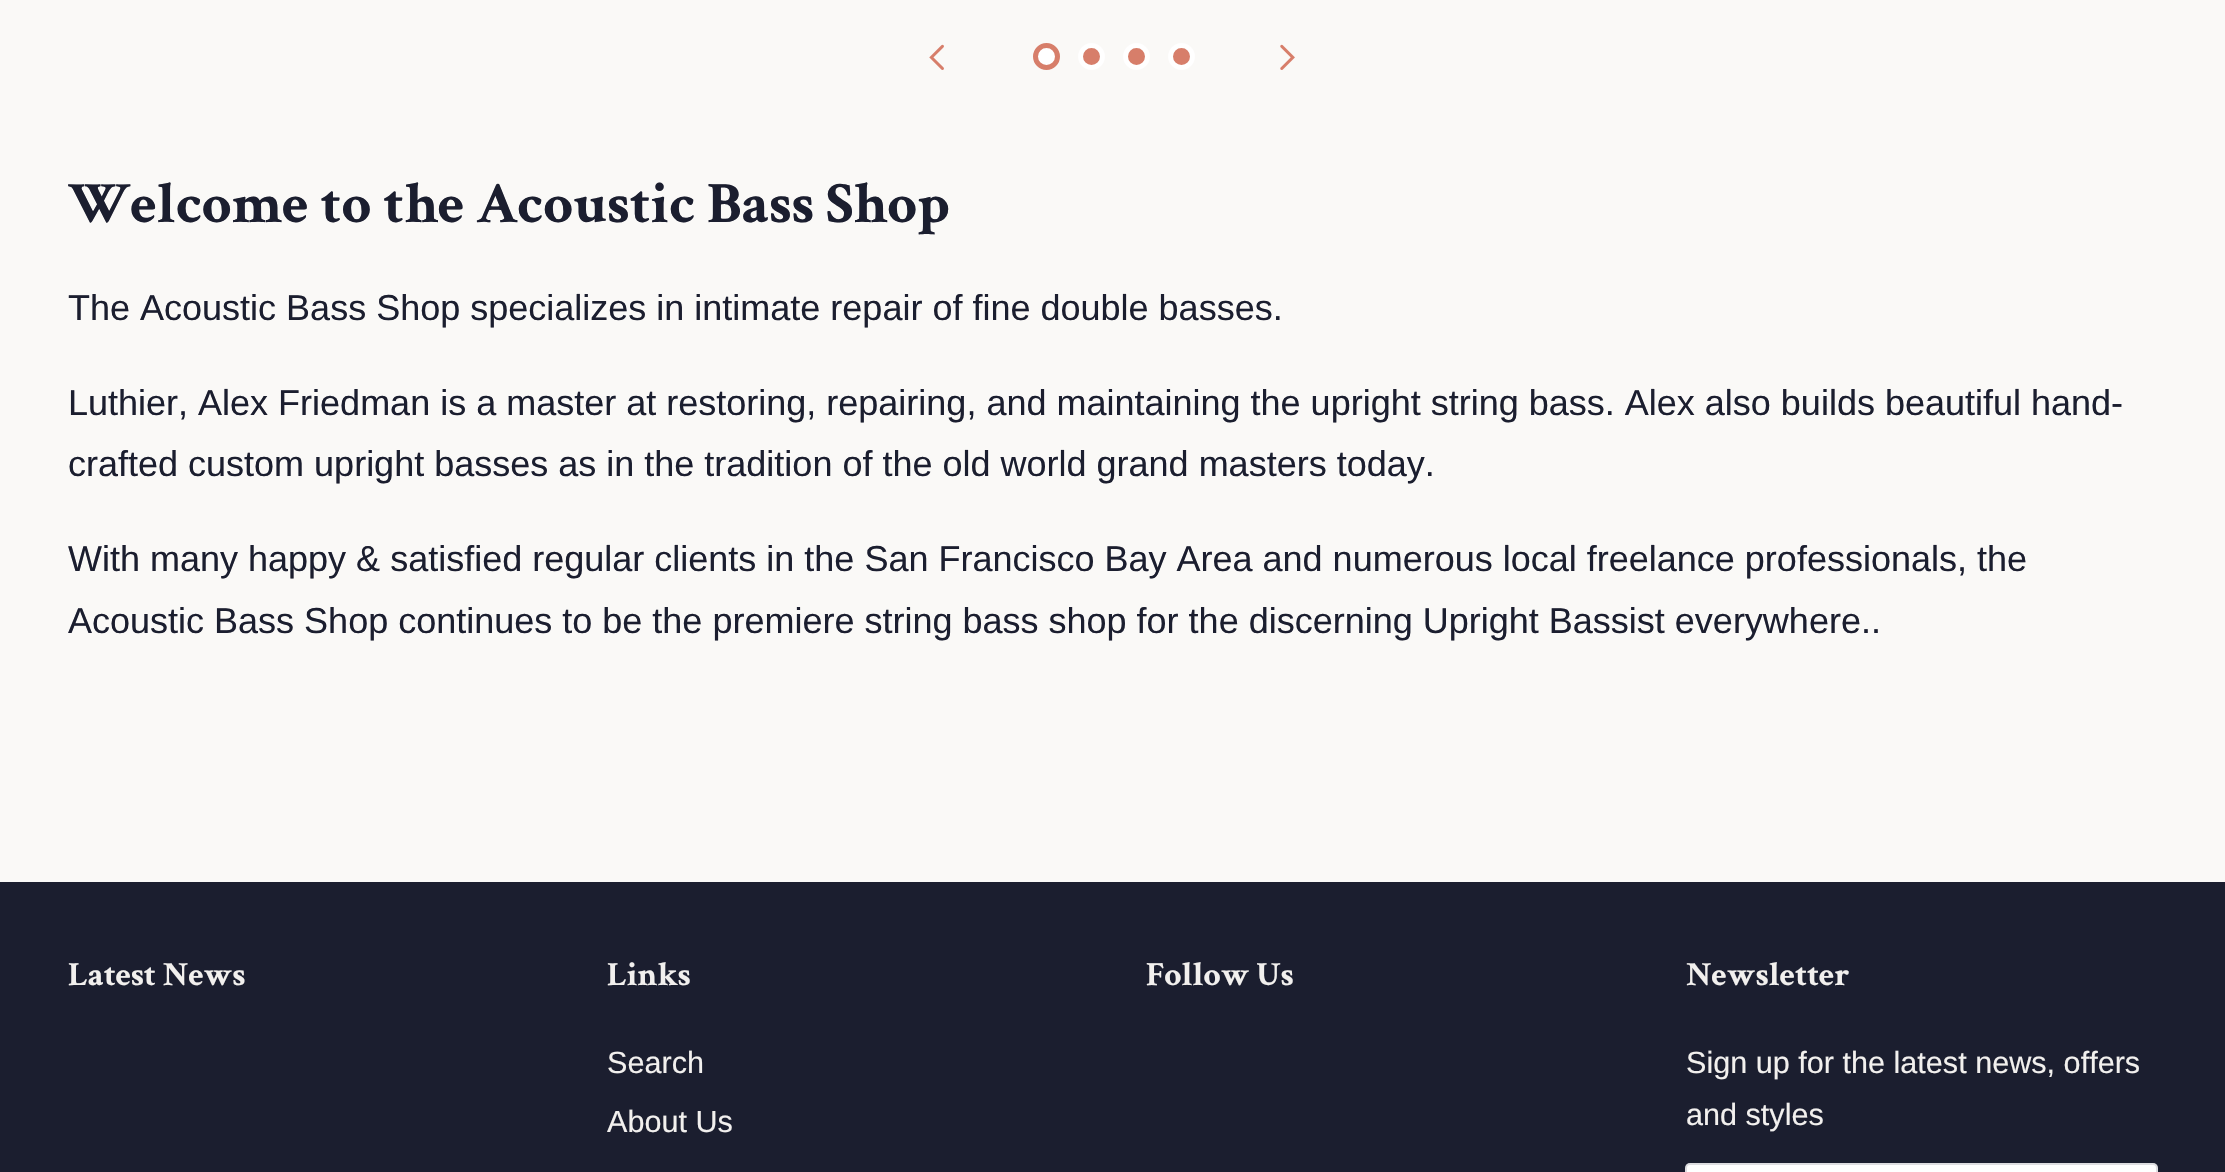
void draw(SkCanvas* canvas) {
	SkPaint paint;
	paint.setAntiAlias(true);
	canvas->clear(0xfffaf9f7);
	paint.setColor(0xffffffff);
	canvas->drawCircle(1046.5, 56.5, 11, paint);
	paint.setStroke(true);
	paint.setStrokeWidth(5);
	paint.setColor(0xffd77e6a);
	canvas->drawCircle(1046.5, 56.5, 11, paint);
	paint.setStroke(false);
	canvas->drawCircle(1091.5, 56.5, 11, paint);
	paint.setStroke(true);
	paint.setColor(0xffffffff);
	canvas->drawCircle(1091.5, 56.5, 11, paint);
	paint.setStroke(false);
	paint.setColor(0xffd77e6a);
	canvas->drawCircle(1136.5, 56.5, 11, paint);
	paint.setStroke(true);
	paint.setColor(0xffffffff);
	canvas->drawCircle(1136.5, 56.5, 11, paint);
	paint.setStroke(false);
	paint.setColor(0xffd77e6a);
	canvas->drawCircle(1181.5, 56.5, 11, paint);
	paint.setStroke(true);
	paint.setColor(0xffffffff);
	canvas->drawCircle(1181.5, 56.5, 11, paint);
	canvas->drawImageRect(SkImages::DeferredFromEncodedData(SkData::MakeFromFileName("img1.png")), SkRect::MakeXYWH(929, 44, 15, 26), SkSamplingOptions());
	canvas->drawImageRect(SkImages::DeferredFromEncodedData(SkData::MakeFromFileName("img2.png")), SkRect::MakeXYWH(1280, 44, 15, 26), SkSamplingOptions());
	SkFont f1(fontMgr->matchFamilyStyle("Crimson Text", SkFontStyle::Bold()), 58.5);
	f1.setSubpixel(true);
	paint.setStroke(false);
	paint.setColor(0xff1b1e2f);
	canvas->drawString("Welcome to the Acoustic Bass Shop", 68, 222, f1, paint);
	SkFont f2(fontMgr->matchFamilyStyle("Liberation Sans", SkFontStyle::Normal()), 36);
	f2.setSubpixel(true);
	canvas->drawString("The Acoustic Bass Shop specializes in intimate repair of fine double basses.", 68, 320, f2, paint);
	canvas->drawString("Luthier, Alex Friedman is a master at restoring, repairing, and maintaining the upright string bass. Alex also builds beautiful hand-", 68, 415, f2, paint);
	canvas->drawString("crafted custom upright basses as in the tradition of the old world grand masters today.", 68, 476, f2, paint);
	canvas->drawString("With many happy & satisfied regular clients in the San Francisco Bay Area and numerous local freelance professionals, the", 68, 571, f2, paint);
	canvas->drawString("Acoustic Bass Shop continues to be the premiere string bass shop for the discerning Upright Bassist everywhere..", 68, 633, f2, paint);
	canvas->drawRect(SkRect::MakeXYWH(0, 882, 2225, 290), paint);
	SkFont f3(fontMgr->matchFamilyStyle("Crimson Text", SkFontStyle::Bold()), 33.75);
	f3.setSubpixel(true);
	paint.setColor(0xfff2f0ee);
	canvas->drawString("Latest News", 68, 985, f3, paint);
	canvas->drawString("Links", 607, 985, f3, paint);
	SkFont f4(fontMgr->matchFamilyStyle("Liberation Sans", SkFontStyle::Normal()), 30.6);
	f4.setSubpixel(true);
	canvas->drawString("Search", 607, 1073, f4, paint);
	canvas->drawString("About Us", 607, 1132, f4, paint);
	canvas->drawString("Follow Us", 1146, 985, f3, paint);
	canvas->drawString("Newsletter", 1686, 985, f3, paint);
	canvas->drawString("Sign up for the latest news, offers", 1686, 1073, f4, paint);
	canvas->drawString("and styles", 1686, 1125, f4, paint);
	paint.setColor(0xffffffff);
	canvas->drawRoundRect(SkRect::MakeXYWH(1685, 1163, 473, 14), 5, 5, paint);
	paint.setStroke(true);
	paint.setStrokeWidth(2);
	paint.setColor(0x261b1e2f);
	canvas->drawRoundRect(SkRect::MakeXYWH(1686, 1164, 471, 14), 4, 4, paint);
}
